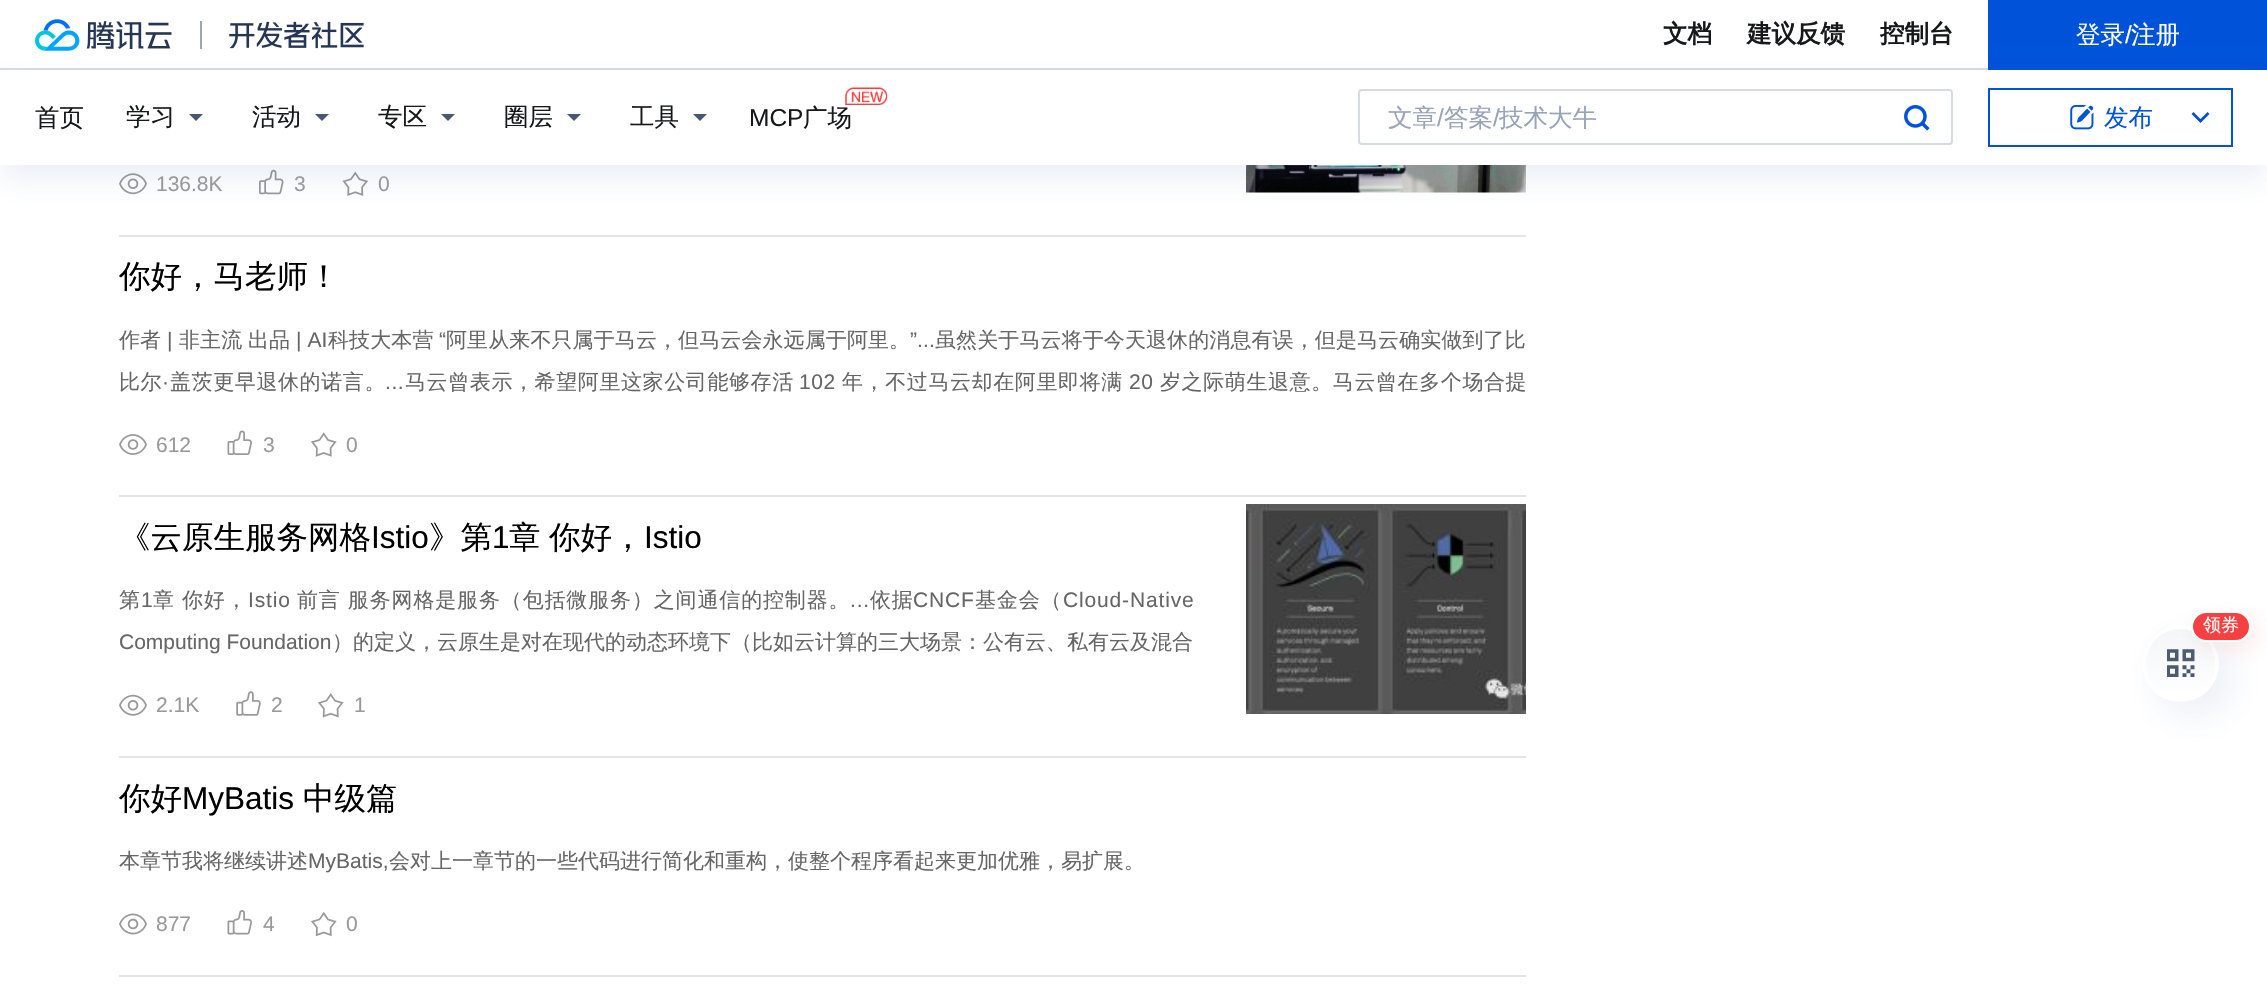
void draw(SkCanvas* canvas) {
	SkPaint paint;
	paint.setAntiAlias(true);
	auto spacedText = [&](const char* s, float x, float y, const SkFont& font, const SkPaint& ink, float letter, float word) {
		std::vector<SkGlyphID> glyphs(font.countText(s, strlen(s), SkTextEncoding::kUTF8));
		std::vector<float> xs(glyphs.size());
		font.textToGlyphs(s, strlen(s), SkTextEncoding::kUTF8, glyphs);
		font.getXPos(glyphs, xs, x);
		float extra = 0;
		for (size_t i = 0; i < glyphs.size(); i++) {
			xs[i] += extra;
			extra += letter + word * (glyphs[i] == font.unicharToGlyph(' '));
		}
		canvas->drawTextBlob(SkTextBlob::MakeFromPosHGlyphs(glyphs, xs, y, font), 0, 0, ink);
	};
	auto svgPath = [&](const char* data, bool evenOdd = false) {
		SkPath result = *SkParsePath::FromSVGString(data);
		if (evenOdd) result.setFillType(SkPathFillType::kEvenOdd);
		return result;
	};
	canvas->clear(0xffffffff);
	paint.setColor(0xffd6dbe3);
	canvas->drawRect(SkRect::MakeXYWH(0, 68, 1988, 2), paint);
	canvas->drawImageRect(SkImages::DeferredFromEncodedData(SkData::MakeFromFileName("img1.png")), SkRect::MakeXYWH(35, 19, 137, 32), SkSamplingOptions());
	paint.setColor(0xff9ba6b7);
	canvas->drawRect(SkRect::MakeXYWH(200, 21, 2, 28), paint);
	canvas->drawImageRect(SkImages::DeferredFromEncodedData(SkData::MakeFromFileName("img2.png")), SkRect::MakeXYWH(229, 21, 135, 28), SkSamplingOptions());
	SkFont f1(fontMgr->matchFamilyStyle("WenQuanYi Zen Hei", SkFontStyle::Bold()), 24.5);
	f1.setSubpixel(true);
	paint.setColor(0xff16181a);
	canvas->drawString("文档", 1663, 42, f1, paint);
	canvas->drawString("建议反馈", 1747, 42, f1, paint);
	canvas->drawString("控制台", 1880, 42, f1, paint);
	paint.setColor(0xff0052d9);
	canvas->drawRect(SkRect::MakeXYWH(1988, 0, 279, 70), paint);
	SkFont f2(fontMgr->matchFamilyStyle("WenQuanYi Zen Hei", SkFontStyle(500, SkFontStyle::kNormal_Width, SkFontStyle::kUpright_Slant)), 24.5);
	f2.setSubpixel(true);
	paint.setColor(0xffffffff);
	canvas->drawString("登录", 2076, 43, f2, paint);
	SkFont f3(fontMgr->matchFamilyStyle("Liberation Sans", SkFontStyle::Normal()), 24.5);
	f3.setSubpixel(true);
	canvas->drawString("/", 2125, 43, f3, paint);
	canvas->drawString("注册", 2131, 43, f2, paint);
	canvas->drawImageRect(SkImages::DeferredFromEncodedData(SkData::MakeFromFileName("img6.png")), SkRect::MakeXYWH(119, 173, 28, 22), SkSamplingOptions());
	canvas->drawImageRect(SkImages::DeferredFromEncodedData(SkData::MakeFromFileName("img7.png")), SkRect::MakeXYWH(259, 169, 25, 26), SkSamplingOptions());
	canvas->drawImageRect(SkImages::DeferredFromEncodedData(SkData::MakeFromFileName("img8.png")), SkRect::MakeXYWH(342, 171, 26, 25), SkSamplingOptions());
	canvas->drawImageRect(SkImages::DeferredFromEncodedData(SkData::MakeFromFileName("img9.png")), SkRect::MakeXYWH(1246, 165, 280, 28), SkSamplingOptions());
	paint.setColor(0x1a3763aa);
	paint.setMaskFilter(SkMaskFilter::MakeBlur(kNormal_SkBlurStyle, 14));
	canvas->drawRect(SkRect::MakeXYWH(0, 84, 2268, 95), paint);
	paint.setMaskFilter(nullptr);
	paint.setColor(0xffffffff);
	canvas->drawRect(SkRect::MakeXYWH(0, 70, 2267, 95), paint);
	paint.setColor(0xff16181a);
	canvas->drawString("首页", 35, 126, f2, paint);
	canvas->drawString("学习", 126, 125, f2, paint);
	paint.setColor(0xff495770);
	canvas->drawPath(svgPath("M196 121L203 114H189Z", true), paint);
	paint.setColor(0xff16181a);
	canvas->drawString("活动", 252, 125, f2, paint);
	paint.setColor(0xff495770);
	canvas->drawPath(svgPath("M322 121L329 114H315Z", true), paint);
	paint.setColor(0xff16181a);
	canvas->drawString("专区", 378, 125, f2, paint);
	paint.setColor(0xff495770);
	canvas->drawPath(svgPath("M448 121L455 114H441Z", true), paint);
	paint.setColor(0xff16181a);
	canvas->drawString("圈层", 504, 125, f2, paint);
	paint.setColor(0xff495770);
	canvas->drawPath(svgPath("M574 121L581 114H567Z", true), paint);
	paint.setColor(0xff16181a);
	canvas->drawString("工具", 630, 125, f2, paint);
	paint.setColor(0xff495770);
	canvas->drawPath(svgPath("M700 121L707 114H693Z", true), paint);
	canvas->drawImageRect(SkImages::DeferredFromEncodedData(SkData::MakeFromFileName("img3.png")), SkRect::MakeXYWH(845, 87, 43, 18), SkSamplingOptions());
	paint.setColor(0xff16181a);
	canvas->drawString("MCP", 749, 126, f3, paint);
	canvas->drawString("广场", 803, 126, f2, paint);
	paint.setStroke(true);
	paint.setStrokeWidth(2);
	paint.setColor(0xffd6dbe3);
	canvas->drawRoundRect(SkRect::MakeXYWH(1359, 90, 593, 54), 3, 3, paint);
	paint.setStroke(false);
	paint.setColor(0xff97a3b7);
	canvas->drawString("文章", 1388, 126, f2, paint);
	canvas->drawString("/", 1437, 126, f3, paint);
	canvas->drawString("答案", 1444, 126, f2, paint);
	canvas->drawString("/", 1493, 126, f3, paint);
	canvas->drawString("技术大牛", 1499, 126, f2, paint);
	canvas->drawImageRect(SkImages::DeferredFromEncodedData(SkData::MakeFromFileName("img4.png")), SkRect::MakeXYWH(1904, 105, 26, 26), SkSamplingOptions());
	paint.setStroke(true);
	paint.setColor(0xff0052d9);
	canvas->drawRect(SkRect::MakeXYWH(1989, 89, 243, 57), paint);
	canvas->drawImageRect(SkImages::DeferredFromEncodedData(SkData::MakeFromFileName("img5.png")), SkRect::MakeXYWH(2070, 105, 24, 25), SkSamplingOptions());
	paint.setStroke(false);
	canvas->drawString("发布", 2104, 126, f2, paint);
	canvas->drawPath(svgPath("M2200.5 123L2191.5 114L2193.5 112L2200.5 119L2207.5 112L2209.5 114Z"), paint);
	paint.setColor(0xffe5e5e5);
	canvas->drawRect(SkRect::MakeXYWH(119, 235, 1407, 2), paint);
	SkFont f4(fontMgr->matchFamilyStyle("Liberation Sans", SkFontStyle::Normal()), 21);
	f4.setSubpixel(true);
	paint.setColor(0xff999999);
	canvas->drawString("136.8K", 156, 191, f4, paint);
	canvas->drawString("3", 294, 191, f4, paint);
	canvas->drawString("0", 378, 191, f4, paint);
	paint.setColor(0xffe5e5e5);
	canvas->drawRect(SkRect::MakeXYWH(119, 495, 1407, 2), paint);
	SkFont f5(fontMgr->matchFamilyStyle("WenQuanYi Zen Hei", SkFontStyle(500, SkFontStyle::kNormal_Width, SkFontStyle::kUpright_Slant)), 31.5);
	f5.setSubpixel(true);
	paint.setColor(0xff000000);
	canvas->drawString("你好，马老师！", 119, 287, f5, paint);
	SkFont f6(fontMgr->matchFamilyStyle("WenQuanYi Zen Hei", SkFontStyle(500, SkFontStyle::kNormal_Width, SkFontStyle::kUpright_Slant)), 21);
	f6.setSubpixel(true);
	paint.setColor(0xff666666);
	spacedText("作者", 119, 347, f6, paint, 0.1, 0);
	spacedText("|", 167, 347, f4, paint, 0.1, 0);
	spacedText("非主流", 179, 347, f6, paint, 0.1, 0);
	spacedText("出品", 248, 347, f6, paint, 0.1, 0);
	spacedText("| AI", 296, 347, f4, paint, 0.1, 0);
	spacedText("科技大本营", 328, 347, f6, paint, 0.1, 0);
	spacedText("“", 439, 347, f4, paint, 0.1, 0);
	spacedText("阿里从来不只属于马云，但马云会永远属于阿里。", 446, 347, f6, paint, 0.1, 0);
	spacedText("”...", 910, 347, f4, paint, 0.1, 0);
	spacedText("虽然关于马云将于今天退休的消息有误，但是马云确实做到了比", 935, 347, f6, paint, 0.1, 0);
	spacedText("比尔", 119, 389, f6, paint, 0.6, 0);
	spacedText("·", 162, 389, f4, paint, 0.6, 0);
	spacedText("盖茨更早退休的诺言。", 170, 389, f6, paint, 0.6, 0);
	spacedText("马云曾表示，希望阿里这家公司能够存活", 405, 389, f6, paint, 0.6, 0);
	spacedText("102", 799, 389, f4, paint, 0.6, 0);
	spacedText("年，不过马云却在阿里即将满", 842, 389, f6, paint, 0.6, 0);
	spacedText("20", 1129, 389, f4, paint, 0.6, 0);
	spacedText("岁之际萌生退意。马云曾在多个场合提", 1160, 389, f6, paint, 0.6, 0);
	spacedText("...", 385, 389, f4, paint, 0.6, 0);
	canvas->drawImageRect(SkImages::DeferredFromEncodedData(SkData::MakeFromFileName("img10.png")), SkRect::MakeXYWH(119, 434, 28, 21), SkSamplingOptions());
	paint.setColor(0xff999999);
	canvas->drawString("612", 156, 452, f4, paint);
	canvas->drawImageRect(SkImages::DeferredFromEncodedData(SkData::MakeFromFileName("img11.png")), SkRect::MakeXYWH(227, 430, 25, 25), SkSamplingOptions());
	canvas->drawString("3", 263, 452, f4, paint);
	canvas->drawImageRect(SkImages::DeferredFromEncodedData(SkData::MakeFromFileName("img12.png")), SkRect::MakeXYWH(311, 432, 26, 25), SkSamplingOptions());
	canvas->drawString("0", 346, 452, f4, paint);
	paint.setColor(0xffe5e5e5);
	canvas->drawRect(SkRect::MakeXYWH(119, 756, 1407, 2), paint);
	paint.setColor(0xff000000);
	canvas->drawString("《云原生服务网格", 119, 548, f5, paint);
	SkFont f7(fontMgr->matchFamilyStyle("Liberation Sans", SkFontStyle::Normal()), 31.5);
	f7.setSubpixel(true);
	canvas->drawString("Istio", 371, 548, f7, paint);
	canvas->drawString("》第", 429, 548, f5, paint);
	canvas->drawString("1", 492, 548, f7, paint);
	spacedText("章 你好，", 509, 548, f5, paint, 0, -1);
	canvas->drawString("Istio", 644, 548, f7, paint);
	paint.setColor(0xff666666);
	spacedText("第", 119, 607, f6, paint, 0.85, 0);
	spacedText("1", 141, 607, f4, paint, 0.85, 0);
	spacedText("章 你好，", 153, 607, f6, paint, 0.85, 0);
	spacedText("Istio", 248, 607, f4, paint, 0.85, 0);
	spacedText("前言 服务网格是服务（包括微服务）之间通信的控制器。", 297, 607, f6, paint, 0.85, 0);
	spacedText("...", 850, 607, f4, paint, 0.85, 0);
	spacedText("依据", 870, 607, f6, paint, 0.85, 0);
	spacedText("CNCF", 913, 607, f4, paint, 0.85, 0);
	spacedText("基金会（", 975, 607, f6, paint, 0.85, 0);
	spacedText("Cloud-Native", 1063, 607, f4, paint, 0.85, 0);
	canvas->drawString("Computing Foundation", 119, 649, f4, paint);
	canvas->drawString("）的定义，云原生是对在现代的动态环境下（比如云计算的三大场景：公有云、私有云及混合", 332, 649, f6, paint);
	canvas->drawImageRect(SkImages::DeferredFromEncodedData(SkData::MakeFromFileName("img13.png")), SkRect::MakeXYWH(119, 694, 28, 22), SkSamplingOptions());
	paint.setColor(0xff999999);
	canvas->drawString("2.1K", 156, 712, f4, paint);
	canvas->drawImageRect(SkImages::DeferredFromEncodedData(SkData::MakeFromFileName("img14.png")), SkRect::MakeXYWH(236, 691, 25, 25), SkSamplingOptions());
	canvas->drawString("2", 271, 712, f4, paint);
	canvas->drawImageRect(SkImages::DeferredFromEncodedData(SkData::MakeFromFileName("img15.png")), SkRect::MakeXYWH(318, 693, 26, 25), SkSamplingOptions());
	canvas->drawString("1", 354, 712, f4, paint);
	canvas->drawImageRect(SkImages::DeferredFromEncodedData(SkData::MakeFromFileName("img16.png")), SkRect::MakeXYWH(1246, 504, 280, 210), SkSamplingOptions());
	paint.setColor(0xffe5e5e5);
	canvas->drawRect(SkRect::MakeXYWH(119, 975, 1407, 2), paint);
	paint.setColor(0xff000000);
	canvas->drawString("你好", 119, 809, f5, paint);
	canvas->drawString("MyBatis", 182, 809, f7, paint);
	canvas->drawString("中级篇", 303, 809, f5, paint);
	paint.setColor(0xff666666);
	canvas->drawString("本章节我将继续讲述", 119, 868, f6, paint);
	canvas->drawString("MyBatis,", 308, 868, f4, paint);
	canvas->drawString("会对上一章节的一些代码进行简化和重构，使整个程序看起来更加优雅，易扩展。", 389, 868, f6, paint);
	canvas->drawImageRect(SkImages::DeferredFromEncodedData(SkData::MakeFromFileName("img17.png")), SkRect::MakeXYWH(119, 913, 28, 22), SkSamplingOptions());
	paint.setColor(0xff999999);
	canvas->drawString("877", 156, 931, f4, paint);
	canvas->drawImageRect(SkImages::DeferredFromEncodedData(SkData::MakeFromFileName("img18.png")), SkRect::MakeXYWH(227, 910, 25, 25), SkSamplingOptions());
	canvas->drawString("4", 263, 931, f4, paint);
	canvas->drawImageRect(SkImages::DeferredFromEncodedData(SkData::MakeFromFileName("img19.png")), SkRect::MakeXYWH(311, 911, 26, 26), SkSamplingOptions());
	canvas->drawString("0", 346, 931, f4, paint);
	paint.setColor(0x1a3763aa);
	paint.setMaskFilter(SkMaskFilter::MakeBlur(kNormal_SkBlurStyle, 17.5));
	canvas->drawRoundRect(SkRect::MakeXYWH(2156, 639, 77, 77), 38.5, 38.5, paint);
	paint.setMaskFilter(nullptr);
	canvas->save();
	canvas->clipPath(svgPath("M2180.5 625C2202 625 2219 642 2219 663.5C2219 685 2202 702 2180.5 702C2159 702 2142 685 2142 663.5C2142 642 2159 625 2180.5 625Z"), true);
	{
		const SkColor colors[] = {0xffffffff, 0xfff3f5f8};
		const float stops[] = {0, 1};
		const SkPoint ends[] = {{2181, 698}, {2181, 628}};
		paint.setShader(SkGradientShader::MakeLinear(ends, colors, stops, 2, SkTileMode::kClamp));
		paint.setAlpha(255);
	}
	canvas->drawRect(SkRect::MakeXYWH(2142, 628, 77, 70), paint);
	canvas->restore();
	paint.setStroke(true);
	paint.setStrokeWidth(4);
	paint.setShader(nullptr);
	paint.setColor(0xffffffff);
	canvas->drawCircle(2180.5, 663.5, 36.5, paint);
	canvas->drawImageRect(SkImages::DeferredFromEncodedData(SkData::MakeFromFileName("img20.png")), SkRect::MakeXYWH(2167, 649, 28, 28), SkSamplingOptions());
	paint.setStroke(false);
	paint.setColor(0x1ad63535);
	paint.setMaskFilter(SkMaskFilter::MakeBlur(kNormal_SkBlurStyle, 10.5));
	canvas->drawRoundRect(SkRect::MakeXYWH(2198, 618, 60, 31), 15.5, 15.5, paint);
	paint.setMaskFilter(nullptr);
	paint.setColor(0xfff64041);
	canvas->drawRoundRect(SkRect::MakeXYWH(2192, 612, 58, 29), 14.5, 14.5, paint);
	paint.setStroke(true);
	paint.setStrokeWidth(2);
	paint.setColor(0xffffffff);
	canvas->drawRoundRect(SkRect::MakeXYWH(2192, 612, 58, 29), 14.5, 14.5, paint);
	SkFont f8(fontMgr->matchFamilyStyle("WenQuanYi Zen Hei", SkFontStyle(500, SkFontStyle::kNormal_Width, SkFontStyle::kUpright_Slant)), 18);
	f8.setSubpixel(true);
	paint.setStroke(false);
	canvas->drawString("领券", 2203, 631, f8, paint);
}
